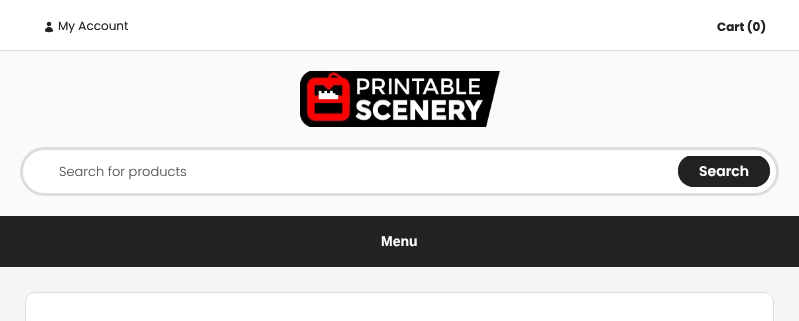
void draw(SkCanvas* canvas) {
	SkPaint paint;
	paint.setAntiAlias(true);
	auto svgPath = [&](const char* data, bool evenOdd = false) {
		SkPath result = *SkParsePath::FromSVGString(data);
		if (evenOdd) result.setFillType(SkPathFillType::kEvenOdd);
		return result;
	};
	canvas->clear(0xfff5f5f5);
	paint.setColor(0xffffffff);
	canvas->drawRect(SkRect::MakeXYWH(0, 0, 799, 50), paint);
	paint.setColor(0xffdddddd);
	canvas->drawRect(SkRect::MakeXYWH(0, 50, 799, 1), paint);
	canvas->drawImageRect(SkImages::DeferredFromEncodedData(SkData::MakeFromFileName("img1.png")), SkRect::MakeXYWH(44, 21, 10, 12), SkSamplingOptions());
	SkFont f1(fontMgr->matchFamilyStyle("Poppins", SkFontStyle::Normal()), 12);
	f1.setSubpixel(true);
	paint.setColor(0xff222222);
	canvas->drawString("My Account", 58, 30, f1, paint);
	SkFont f2(fontMgr->matchFamilyStyle("Poppins", SkFontStyle::Bold()), 12);
	f2.setSubpixel(true);
	canvas->drawString("Cart (0)", 717, 31, f2, paint);
	paint.setColor(0xfffafafa);
	canvas->drawRect(SkRect::MakeXYWH(0, 51, 799, 165), paint);
	canvas->drawImageRect(SkImages::DeferredFromEncodedData(SkData::MakeFromFileName("img2.png")), SkRect::MakeXYWH(300, 71, 200, 56), SkSamplingOptions());
	paint.setColor(0xffffffff);
	canvas->drawRoundRect(SkRect::MakeXYWH(21.5, 148.5, 756, 46), 23, 23, paint);
	paint.setStroke(true);
	paint.setStrokeWidth(3);
	paint.setColor(0xffdddddd);
	canvas->drawRoundRect(SkRect::MakeXYWH(21.5, 148.5, 756, 46), 23, 23, paint);
	SkFont f3(fontMgr->matchFamilyStyle("Poppins", SkFontStyle(300, SkFontStyle::kNormal_Width, SkFontStyle::kUpright_Slant)), 13);
	f3.setSubpixel(true);
	paint.setStroke(false);
	paint.setColor(0xff575757);
	canvas->drawString("Search for products", 59, 176, f3, paint);
	canvas->save();
	canvas->clipPath(svgPath("M34 156H765C768 156 770 158 770 161V182C770 185 768 187 765 187H34C31 187 29 185 29 182V161C29 158 31 156 34 156Z"), true);
	paint.setColor(0xff222222);
	canvas->drawRoundRect(SkRect::MakeXYWH(678, 155, 92, 32), 16, 16, paint);
	canvas->restore();
	canvas->drawPath(svgPath("M694 156H688C682 158 678 164 678 171C678 180 685 187 694 187H754C763 187 770 180 770 171C770 164 766 158 760 156H754C767 156 774 172 765 182C763 184 760 185 757 186H694C674 186 674 156 694 156Z"), paint);
	SkFont f4(fontMgr->matchFamilyStyle("Poppins", SkFontStyle(600, SkFontStyle::kNormal_Width, SkFontStyle::kUpright_Slant)), 14);
	f4.setSubpixel(true);
	paint.setColor(0xffffffff);
	canvas->drawString("Search", 699, 176, f4, paint);
	paint.setColor(0xff222222);
	canvas->drawRect(SkRect::MakeXYWH(0, 216, 799, 51), paint);
	SkFont f5(fontMgr->matchFamilyStyle("Liberation Sans", SkFontStyle::Bold()), 14);
	f5.setSubpixel(true);
	paint.setColor(0xffffffff);
	canvas->drawString("Menu", 381, 246, f5, paint);
	canvas->drawRoundRect(SkRect::MakeXYWH(25.5, 292.5, 748, 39), 9.5, 9.5, paint);
	paint.setStroke(true);
	paint.setStrokeWidth(1);
	paint.setColor(0xffdddddd);
	canvas->drawRoundRect(SkRect::MakeXYWH(25.5, 292.5, 748, 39), 9.5, 9.5, paint);
}
